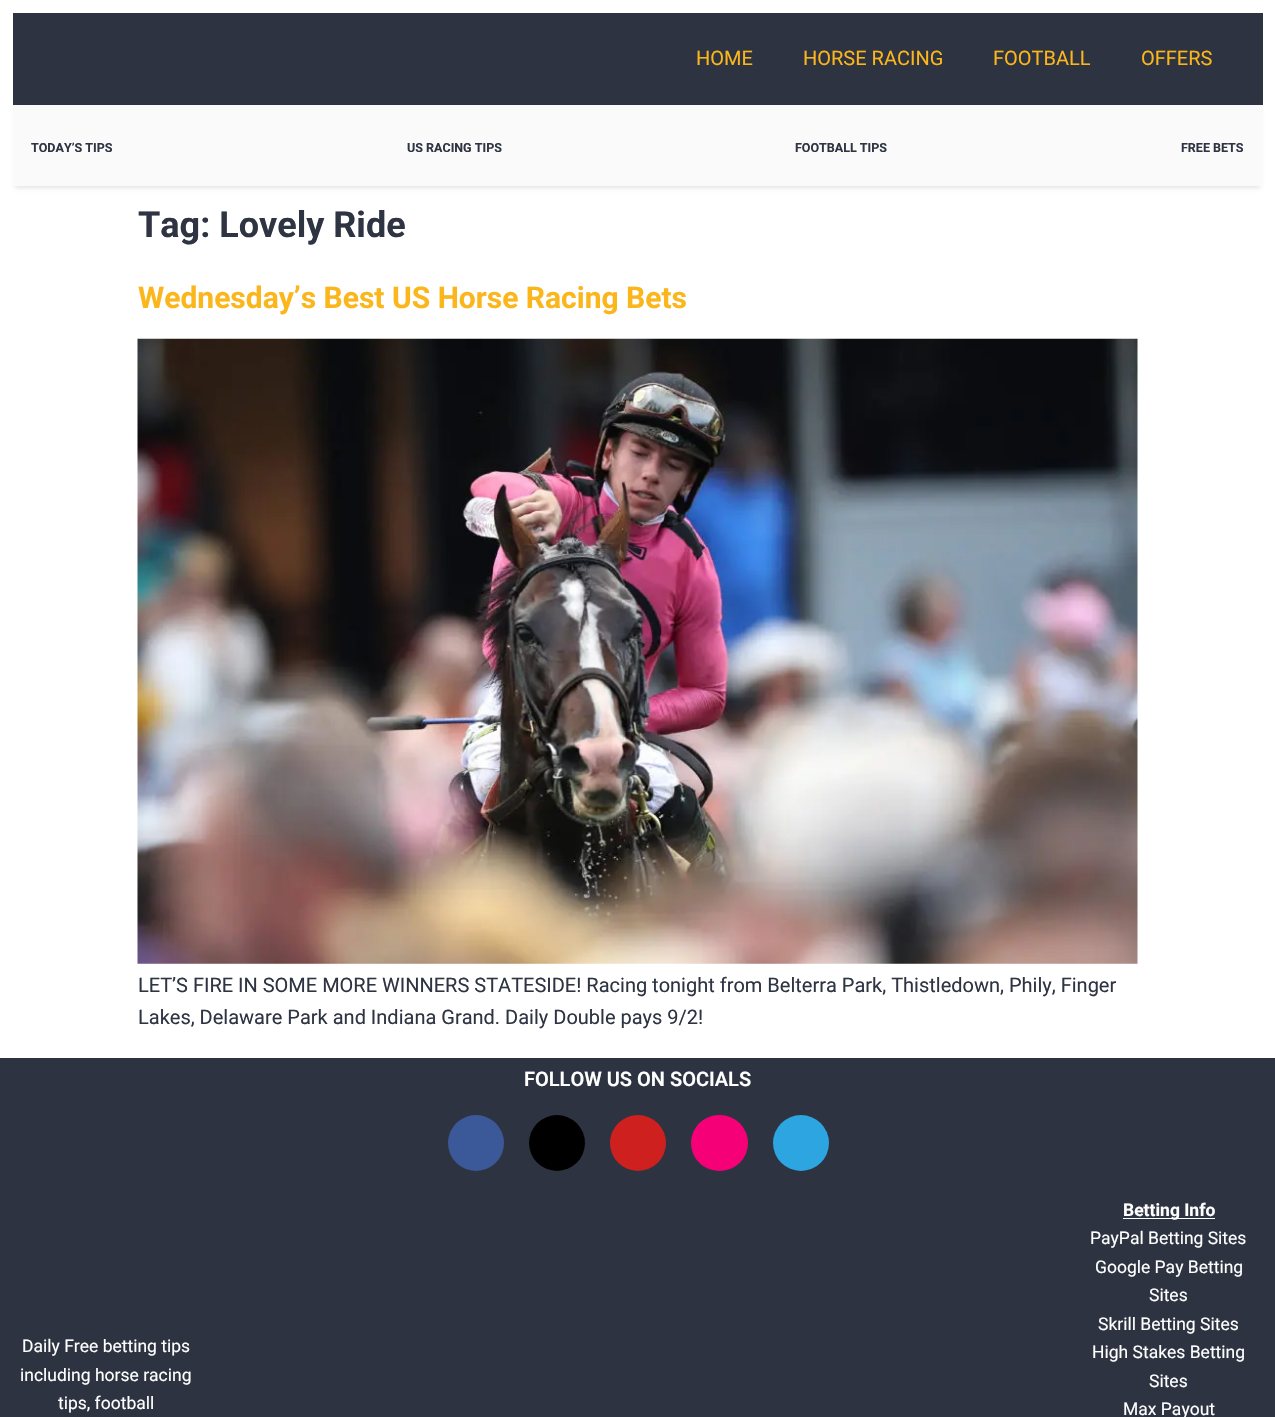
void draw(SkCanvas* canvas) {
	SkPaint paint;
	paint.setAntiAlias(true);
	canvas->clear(0xffffffff);
	paint.setColor(0x1a000000);
	paint.setMaskFilter(SkMaskFilter::MakeBlur(kNormal_SkBlurStyle, 2));
	canvas->drawRect(SkRect::MakeXYWH(15, 111, 1245, 77), paint);
	paint.setMaskFilter(nullptr);
	paint.setColor(0xff2d3341);
	canvas->drawRect(SkRect::MakeXYWH(13, 13, 1250, 92), paint);
	SkFont f1(fontMgr->matchFamilyStyle("Roboto", SkFontStyle::Normal()), 20);
	f1.setSubpixel(true);
	paint.setColor(0xfffbb61c);
	canvas->drawString("HOME", 696, 65, f1, paint);
	canvas->drawString("HORSE RACING", 803, 65, f1, paint);
	canvas->drawString("FOOTBALL", 993, 65, f1, paint);
	canvas->drawString("OFFERS", 1141, 65, f1, paint);
	paint.setColor(0xfffafafa);
	canvas->drawRect(SkRect::MakeXYWH(13, 105, 1250, 81), paint);
	SkFont f2(fontMgr->matchFamilyStyle("Roboto", SkFontStyle::Bold()), 12.5);
	f2.setSubpixel(true);
	paint.setColor(0xff2e3442);
	canvas->drawString("TODAY’S TIPS", 31, 152, f2, paint);
	canvas->drawString("US RACING TIPS", 407, 152, f2, paint);
	canvas->drawString("FOOTBALL TIPS", 795, 152, f2, paint);
	canvas->drawString("FREE BETS", 1181, 152, f2, paint);
	SkFont f3(fontMgr->matchFamilyStyle("Roboto", SkFontStyle::Bold()), 36);
	f3.setSubpixel(true);
	canvas->drawString("Tag: Lovely Ride", 138, 237, f3, paint);
	SkFont f4(fontMgr->matchFamilyStyle("Roboto", SkFontStyle::Bold()), 30);
	f4.setSubpixel(true);
	paint.setColor(0xfffbb61c);
	canvas->drawString("Wednesday’s Best US Horse Racing Bets", 138, 308, f4, paint);
	canvas->drawImageRect(SkImages::DeferredFromEncodedData(SkData::MakeFromFileName("img1.png")), SkRect::MakeXYWH(137, 338, 1001, 626), SkSamplingOptions());
	paint.setColor(0xff2e3442);
	canvas->drawString("LET’S FIRE IN SOME MORE WINNERS STATESIDE! Racing tonight from Belterra Park, Thistledown, Phily, Finger", 138, 992, f1, paint);
	canvas->drawString("Lakes, Delaware Park and Indiana Grand. Daily Double pays 9/2!", 138, 1024, f1, paint);
	paint.setColor(0xff2d3341);
	canvas->drawRect(SkRect::MakeXYWH(0, 1058, 1275, 359), paint);
	SkFont f5(fontMgr->matchFamilyStyle("Roboto", SkFontStyle(600, SkFontStyle::kNormal_Width, SkFontStyle::kUpright_Slant)), 20);
	f5.setSubpixel(true);
	paint.setColor(0xffffffff);
	canvas->drawString("FOLLOW US ON SOCIALS", 524, 1086, f5, paint);
	paint.setColor(0xff3b5998);
	canvas->drawCircle(476, 1143, 28, paint);
	paint.setColor(0xff000000);
	canvas->drawCircle(557, 1143, 28, paint);
	paint.setColor(0xffcd201f);
	canvas->drawCircle(638, 1143, 28, paint);
	paint.setColor(0xfff60078);
	canvas->drawRoundRect(SkRect::MakeXYWH(691, 1115, 57, 56), 28, 28, paint);
	paint.setColor(0xff2ca5e0);
	canvas->drawCircle(801, 1143, 28, paint);
	SkFont f6(fontMgr->matchFamilyStyle("Roboto", SkFontStyle::Normal()), 17.5);
	f6.setSubpixel(true);
	paint.setColor(0xffffffff);
	canvas->drawString("Daily Free betting tips", 22, 1352, f6, paint);
	canvas->drawString("including horse racing", 20, 1381, f6, paint);
	canvas->drawString("tips, football", 58, 1409, f6, paint);
	canvas->drawRect(SkRect::MakeXYWH(1123, 1218, 92, 1), paint);
	SkFont f7(fontMgr->matchFamilyStyle("Roboto", SkFontStyle::Bold()), 17.5);
	f7.setSubpixel(true);
	canvas->drawString("Betting Info", 1123, 1216, f7, paint);
	canvas->drawString("PayPal Betting Sites", 1090, 1244, f6, paint);
	canvas->drawString("Google Pay Betting", 1095, 1273, f6, paint);
	canvas->drawString("Sites", 1149, 1301, f6, paint);
	canvas->drawString("Skrill Betting Sites", 1098, 1330, f6, paint);
	canvas->drawString("High Stakes Betting", 1092, 1358, f6, paint);
	canvas->drawString("Sites", 1149, 1387, f6, paint);
	canvas->drawString("Max Payout", 1123, 1415, f6, paint);
}
